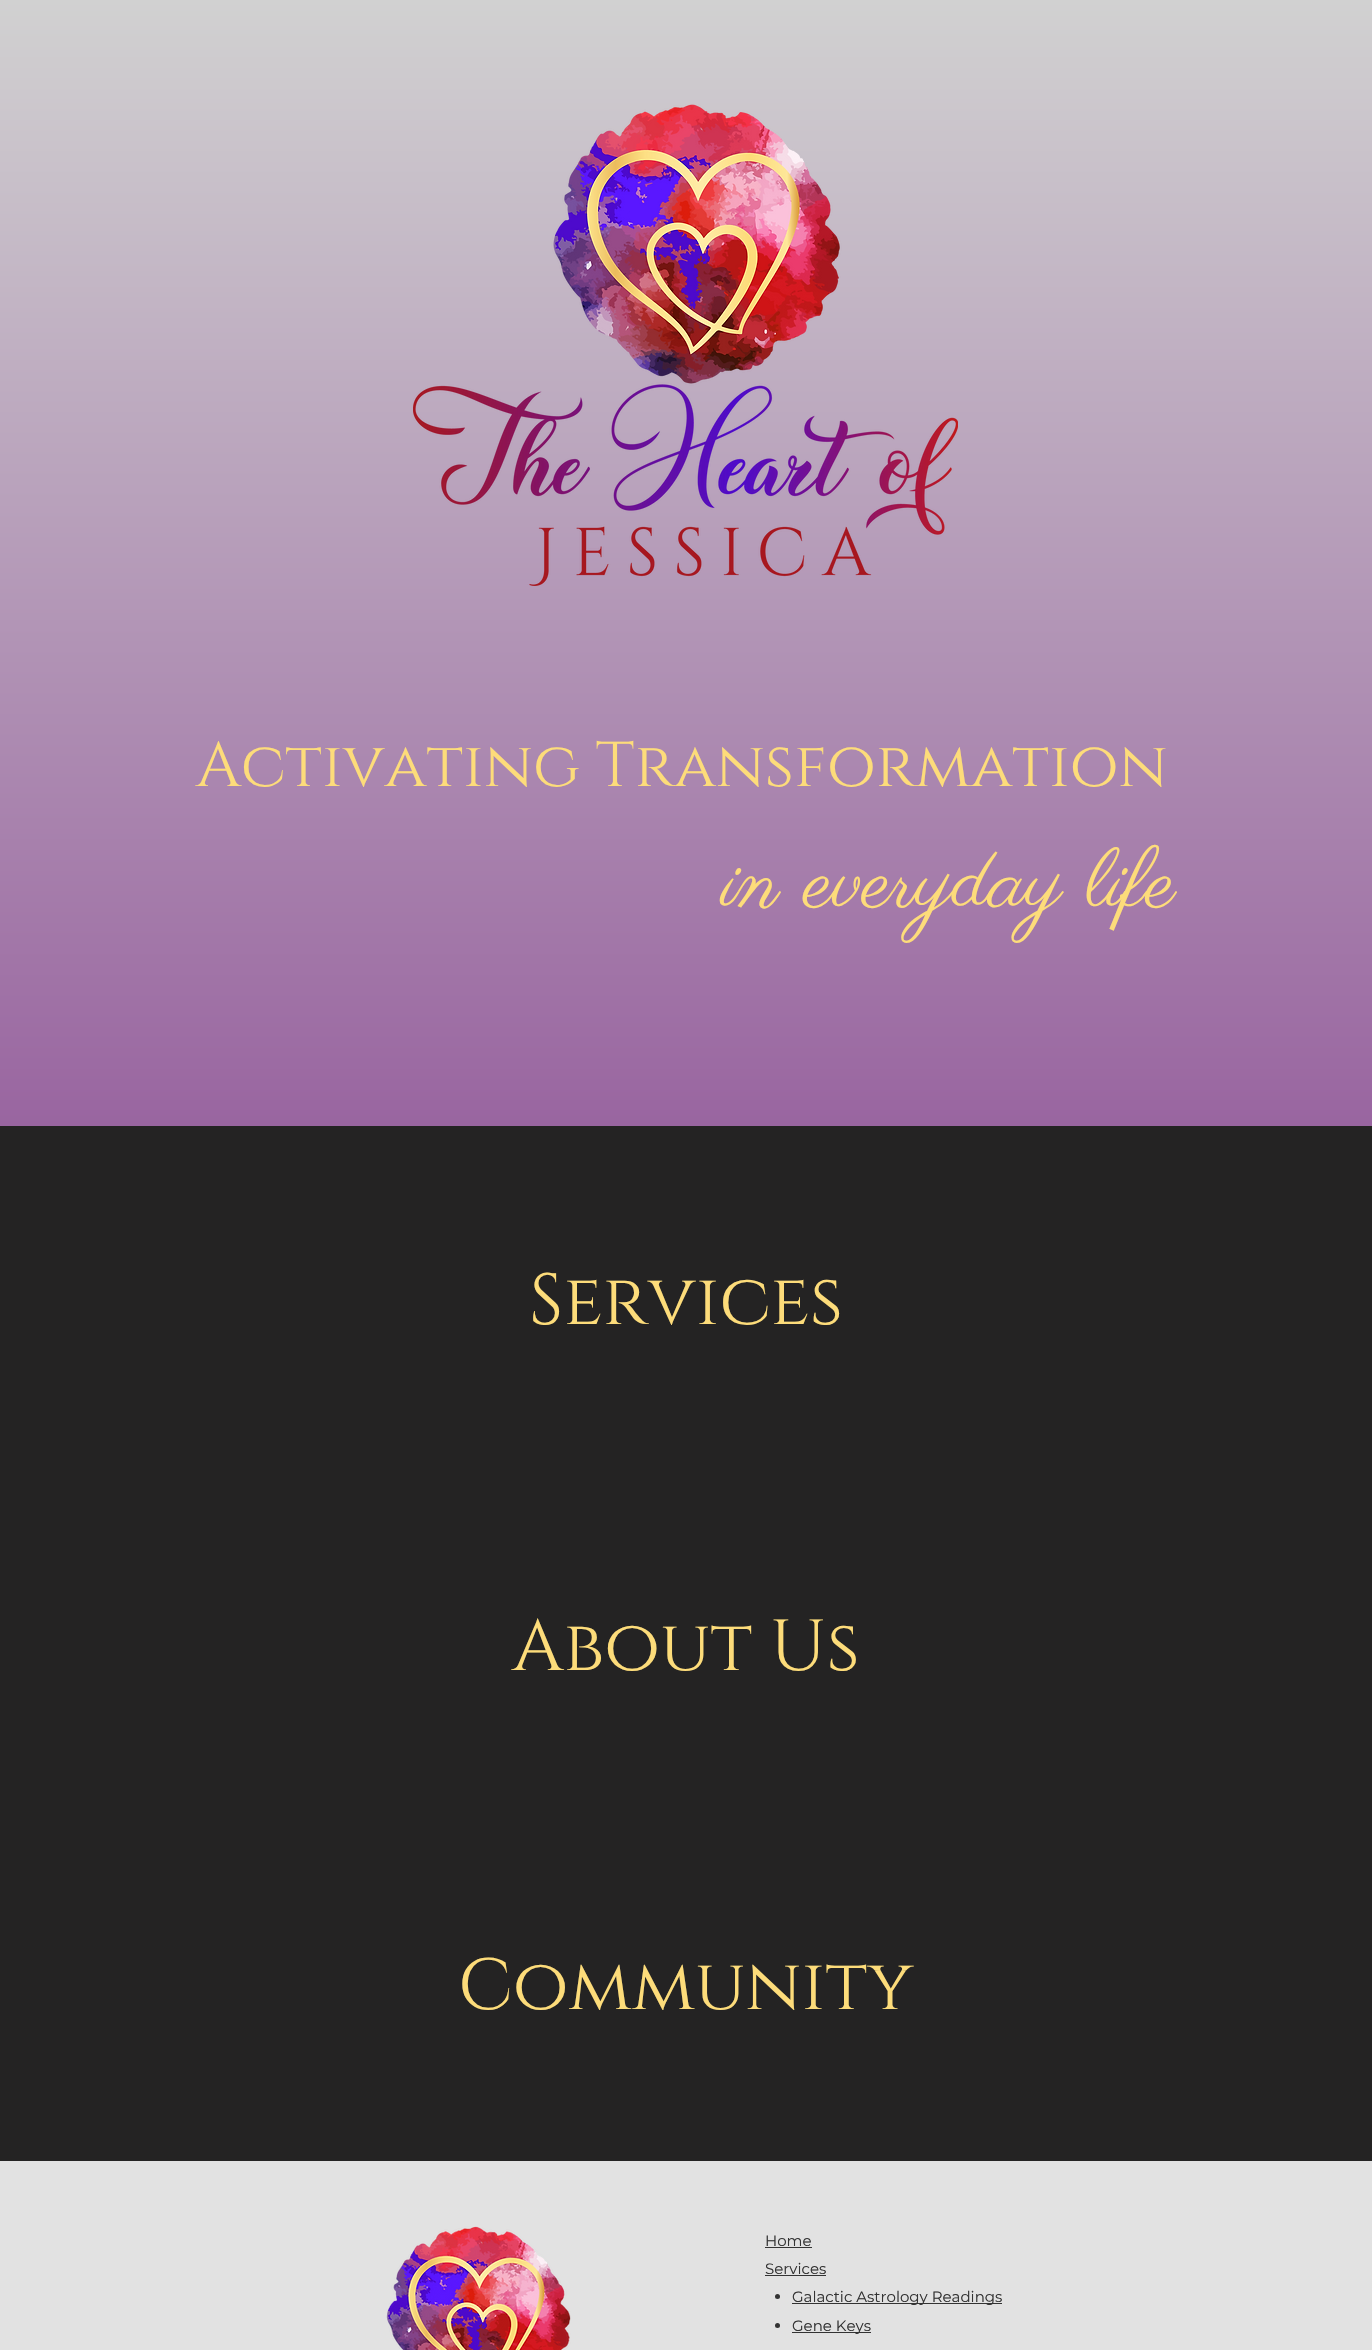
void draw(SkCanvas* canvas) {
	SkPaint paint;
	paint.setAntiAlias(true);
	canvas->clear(0xffe2e2e2);
	{
		const SkColor colors[] = {0xff9965a0, 0xffd1d1d1};
		const float stops[] = {0, 1};
		const SkPoint ends[] = {{686, 1126}, {686, 0}};
		paint.setShader(SkGradientShader::MakeLinear(ends, colors, stops, 2, SkTileMode::kClamp));
		paint.setAlpha(255);
	}
	canvas->drawRect(SkRect::MakeXYWH(0, 0, 1372, 1126), paint);
	canvas->drawImageRect(SkImages::DeferredFromEncodedData(SkData::MakeFromFileName("img1.png")), SkRect::MakeXYWH(413, 104, 545, 482), SkSamplingOptions());
	SkFont f1(fontMgr->matchFamilyStyle("Cinzel", SkFontStyle::Normal()), 63);
	f1.setSubpixel(true);
	paint.setShader(nullptr);
	paint.setColor(0xfffddc7a);
	canvas->drawString("Activating Transformation", 196, 786, f1, paint);
	SkFont f2(fontMgr->matchFamilyStyle("Parisienne", SkFontStyle::Normal()), 83);
	f2.setSubpixel(true);
	canvas->drawString("in everyday life", 723, 906, f2, paint);
	paint.setColor(0xff242323);
	canvas->drawRect(SkRect::MakeXYWH(0, 1126, 1372, 1035), paint);
	SkFont f3(fontMgr->matchFamilyStyle("Cinzel", SkFontStyle::Normal()), 72);
	f3.setSubpixel(true);
	paint.setColor(0xfffddc7a);
	canvas->drawString("Services", 529, 1324, f3, paint);
	canvas->drawString("About Us", 512, 1670, f3, paint);
	canvas->drawString("Community", 458, 2009, f3, paint);
	canvas->drawImageRect(SkImages::DeferredFromEncodedData(SkData::MakeFromFileName("img2.png")), SkRect::MakeXYWH(386, 2226, 185, 124), SkSamplingOptions());
	SkFont f4(fontMgr->matchFamilyStyle("Montserrat", SkFontStyle::Normal()), 15);
	f4.setSubpixel(true);
	paint.setColor(0xff333333);
	canvas->drawString("Home", 765, 2246, f4, paint);
	canvas->drawRect(SkRect::MakeXYWH(765, 2247, 47, 1), paint);
	canvas->drawString("Services", 765, 2274, f4, paint);
	canvas->drawRect(SkRect::MakeXYWH(765, 2275, 61, 1), paint);
	canvas->drawCircle(777.5, 2296.5, 2.5, paint);
	canvas->drawRect(SkRect::MakeXYWH(792, 2303, 210, 1), paint);
	canvas->drawString("Galactic Astrology Readings", 792, 2302, f4, paint);
	canvas->drawCircle(777.5, 2325.5, 2.5, paint);
	canvas->drawRect(SkRect::MakeXYWH(792, 2332, 79, 1), paint);
	canvas->drawString("Gene Keys", 792, 2331, f4, paint);
}
